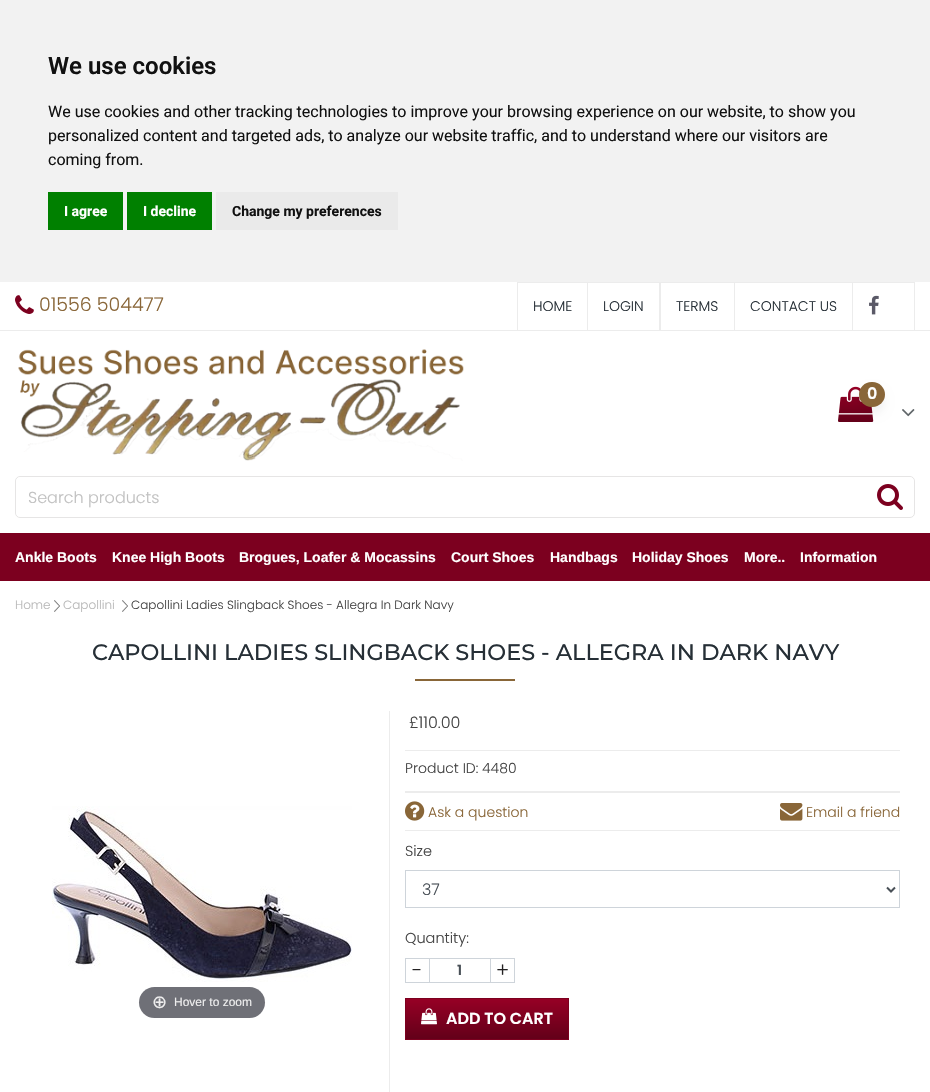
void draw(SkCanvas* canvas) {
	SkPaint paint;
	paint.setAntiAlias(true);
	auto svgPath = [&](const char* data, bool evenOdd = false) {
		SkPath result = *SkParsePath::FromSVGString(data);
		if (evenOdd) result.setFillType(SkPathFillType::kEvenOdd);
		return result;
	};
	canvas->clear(0xffffffff);
	paint.setColor(0xfff2f2f2);
	canvas->drawRect(SkRect::MakeXYWH(0, 0, 930, 282), paint);
	SkFont f1(fontMgr->matchFamilyStyle("Roboto", SkFontStyle(600, SkFontStyle::kNormal_Width, SkFontStyle::kUpright_Slant)), 24);
	f1.setSubpixel(true);
	paint.setColor(0xff111111);
	canvas->drawString("We use cookies", 48, 74, f1, paint);
	SkFont f2(fontMgr->matchFamilyStyle("Roboto", SkFontStyle::Normal()), 16);
	f2.setSubpixel(true);
	canvas->drawString("We use cookies and other tracking technologies to improve your browsing experience on our website, to show you", 48, 117, f2, paint);
	canvas->drawString("personalized content and targeted ads, to analyze our website traffic, and to understand where our visitors are", 48, 141, f2, paint);
	canvas->drawString("coming from.", 48, 165, f2, paint);
	paint.setColor(0xff008000);
	canvas->drawRect(SkRect::MakeXYWH(48, 192, 75, 38), paint);
	SkFont f3(fontMgr->matchFamilyStyle("Roboto", SkFontStyle::Bold()), 14);
	f3.setSubpixel(true);
	paint.setColor(0xffffffff);
	canvas->drawString("I agree", 64, 216, f3, paint);
	paint.setColor(0xff008000);
	canvas->drawRect(SkRect::MakeXYWH(127, 192, 85, 38), paint);
	paint.setColor(0xffffffff);
	canvas->drawString("I decline", 143, 216, f3, paint);
	paint.setColor(0xffeaeaea);
	canvas->drawRect(SkRect::MakeXYWH(216, 192, 182, 38), paint);
	paint.setColor(0xff111111);
	canvas->drawString("Change my preferences", 232, 216, f3, paint);
	paint.setColor(0xffececec);
	canvas->drawRect(SkRect::MakeXYWH(0, 330, 930, 1), paint);
	canvas->drawImageRect(SkImages::DeferredFromEncodedData(SkData::MakeFromFileName("img1.png")), SkRect::MakeXYWH(15, 295, 19, 19), SkSamplingOptions());
	SkFont f4(fontMgr->matchFamilyStyle("Poppins", SkFontStyle(300, SkFontStyle::kNormal_Width, SkFontStyle::kUpright_Slant)), 19);
	f4.setSubpixel(true);
	paint.setColor(0xff896638);
	canvas->drawString("01556 504477", 39, 311, f4, paint);
	paint.setColor(0xffececec);
	canvas->drawRect(SkRect::MakeXYWH(517, 282, 398, 1), paint);
	canvas->drawRect(SkRect::MakeXYWH(517, 282, 1, 48), paint);
	SkFont f5(fontMgr->matchFamilyStyle("Poppins", SkFontStyle(300, SkFontStyle::kNormal_Width, SkFontStyle::kUpright_Slant)), 14);
	f5.setSubpixel(true);
	paint.setColor(0xff262f36);
	canvas->drawString("HOME", 533, 311, f5, paint);
	paint.setColor(0xffececec);
	canvas->drawRect(SkRect::MakeXYWH(659, 282, 2, 48), paint);
	canvas->drawRect(SkRect::MakeXYWH(587, 282, 1, 48), paint);
	paint.setColor(0xff262f36);
	canvas->drawString("LOGIN", 603, 311, f5, paint);
	canvas->drawString("TERMS", 676, 311, f5, paint);
	paint.setColor(0xffececec);
	canvas->drawRect(SkRect::MakeXYWH(734, 282, 1, 48), paint);
	paint.setColor(0xff262f36);
	canvas->drawString("CONTACT US", 750, 311, f5, paint);
	paint.setColor(0xffececec);
	canvas->drawRect(SkRect::MakeXYWH(914, 282, 1, 48), paint);
	canvas->drawRect(SkRect::MakeXYWH(852, 282, 1, 48), paint);
	canvas->drawImageRect(SkImages::DeferredFromEncodedData(SkData::MakeFromFileName("img2.png")), SkRect::MakeXYWH(869, 295, 10, 20), SkSamplingOptions());
	canvas->drawImageRect(SkImages::DeferredFromEncodedData(SkData::MakeFromFileName("img3.png")), SkRect::MakeXYWH(18, 349, 446, 112), SkSamplingOptions());
	canvas->drawImageRect(SkImages::DeferredFromEncodedData(SkData::MakeFromFileName("img4.png")), SkRect::MakeXYWH(838, 386, 36, 36), SkSamplingOptions());
	paint.setColor(0x0d000000);
	paint.setMaskFilter(SkMaskFilter::MakeBlur(kNormal_SkBlurStyle, 4));
	canvas->drawRoundRect(SkRect::MakeXYWH(859, 389, 26, 25), 12.5, 12.5, paint);
	paint.setMaskFilter(nullptr);
	paint.setColor(0xff896638);
	canvas->drawRoundRect(SkRect::MakeXYWH(859, 382, 26, 25), 12.5, 12.5, paint);
	SkFont f6(fontMgr->matchFamilyStyle("Poppins", SkFontStyle(600, SkFontStyle::kNormal_Width, SkFontStyle::kUpright_Slant)), 16);
	f6.setSubpixel(true);
	paint.setColor(0xffffffff);
	canvas->drawString("0", 867, 399, f6, paint);
	canvas->drawImageRect(SkImages::DeferredFromEncodedData(SkData::MakeFromFileName("img5.png")), SkRect::MakeXYWH(902, 409, 13, 8), SkSamplingOptions());
	paint.setStroke(true);
	paint.setStrokeWidth(1);
	paint.setColor(0xffe6e5e5);
	canvas->drawRoundRect(SkRect::MakeXYWH(15.5, 476.5, 899, 41), 4.5, 4.5, paint);
	paint.setStroke(false);
	paint.setColor(0xffffffff);
	canvas->drawRoundRect(SkRect::MakeXYWH(16, 477, 849, 40), 5, 5, paint);
	SkFont f7(fontMgr->matchFamilyStyle("Poppins", SkFontStyle(300, SkFontStyle::kNormal_Width, SkFontStyle::kUpright_Slant)), 16);
	f7.setSubpixel(true);
	paint.setColor(0xffc1c1c1);
	canvas->drawString("Search products", 28, 503, f7, paint);
	paint.setColor(0xffffffff);
	canvas->drawRoundRect(SkRect::MakeXYWH(865, 477, 49, 38), 5, 5, paint);
	canvas->drawImageRect(SkImages::DeferredFromEncodedData(SkData::MakeFromFileName("img6.png")), SkRect::MakeXYWH(877, 484, 26, 26), SkSamplingOptions());
	paint.setColor(0xff7c001f);
	canvas->drawRect(SkRect::MakeXYWH(0, 533, 930, 48), paint);
	SkFont f8(fontMgr->matchFamilyStyle("Liberation Sans", SkFontStyle::Bold()), 14);
	f8.setSubpixel(true);
	paint.setColor(0xffffffff);
	canvas->drawString("Ankle Boots", 15, 562, f8, paint);
	canvas->drawString("Knee High Boots", 112, 562, f8, paint);
	canvas->drawString("Brogues, Loafer & Mocassins", 239, 562, f8, paint);
	canvas->drawString("Court Shoes", 451, 562, f8, paint);
	canvas->drawString("Handbags", 550, 562, f8, paint);
	canvas->drawString("Holiday Shoes", 632, 562, f8, paint);
	canvas->drawString("More..", 744, 562, f8, paint);
	canvas->drawString("Information", 800, 562, f8, paint);
	SkFont f9(fontMgr->matchFamilyStyle("Poppins", SkFontStyle(300, SkFontStyle::kNormal_Width, SkFontStyle::kUpright_Slant)), 12);
	f9.setSubpixel(true);
	paint.setColor(0xffb8b8b8);
	canvas->drawString("Home", 15, 609, f9, paint);
	canvas->drawImageRect(SkImages::DeferredFromEncodedData(SkData::MakeFromFileName("img7.png")), SkRect::MakeXYWH(54, 600, 6, 12), SkSamplingOptions());
	canvas->drawString("Capollini", 63, 609, f9, paint);
	canvas->drawImageRect(SkImages::DeferredFromEncodedData(SkData::MakeFromFileName("img7.png")), SkRect::MakeXYWH(122, 600, 6, 12), SkSamplingOptions());
	paint.setColor(0xff444444);
	canvas->drawString("Capollini Ladies Slingback Shoes - Allegra In Dark Navy", 131, 609, f9, paint);
	SkFont f10(fontMgr->matchFamilyStyle("Montserrat", SkFontStyle(500, SkFontStyle::kNormal_Width, SkFontStyle::kUpright_Slant)), 22.4);
	f10.setSubpixel(true);
	paint.setColor(0xff262f36);
	canvas->drawString("CAPOLLINI LADIES SLINGBACK SHOES - ALLEGRA IN DARK NAVY", 92, 660, f10, paint);
	paint.setColor(0xff896638);
	canvas->drawRect(SkRect::MakeXYWH(415, 679, 100, 2), paint);
	paint.setColor(0xffececec);
	canvas->drawRect(SkRect::MakeXYWH(389, 711, 1, 381), paint);
	canvas->drawImageRect(SkImages::DeferredFromEncodedData(SkData::MakeFromFileName("img8.png")), SkRect::MakeXYWH(52, 806, 300, 176), SkSamplingOptions());
	paint.setColor(0xff6f7077);
	canvas->drawRoundRect(SkRect::MakeXYWH(139, 987, 126, 31), 15.5, 15.5, paint);
	SkFont f11(fontMgr->matchFamilyStyle("DejaVu Sans", SkFontStyle::Normal()), 18);
	f11.setSubpixel(true);
	paint.setColor(0xffeeeeee);
	canvas->drawString("⊕", 152, 1008, f11, paint);
	SkFont f12(fontMgr->matchFamilyStyle("Liberation Sans", SkFontStyle::Normal()), 12);
	f12.setSubpixel(true);
	canvas->drawString("Hover to zoom", 174, 1006, f12, paint);
	paint.setColor(0xff444444);
	canvas->drawString("£110.00", 409, 728, f7, paint);
	paint.setColor(0xffececec);
	canvas->drawRect(SkRect::MakeXYWH(405, 750, 495, 1), paint);
	canvas->drawRect(SkRect::MakeXYWH(405, 791, 495, 2), paint);
	paint.setColor(0xff444444);
	canvas->drawString("Product ID:", 405, 773, f5, paint);
	canvas->drawString("4480", 482, 773, f5, paint);
	paint.setColor(0xffececec);
	canvas->drawRect(SkRect::MakeXYWH(405, 830, 495, 1), paint);
	canvas->drawImageRect(SkImages::DeferredFromEncodedData(SkData::MakeFromFileName("img9.png")), SkRect::MakeXYWH(405, 801, 20, 20), SkSamplingOptions());
	paint.setColor(0xff896638);
	canvas->drawString("Ask a question", 428, 817, f5, paint);
	canvas->drawImageRect(SkImages::DeferredFromEncodedData(SkData::MakeFromFileName("img10.png")), SkRect::MakeXYWH(780, 803, 23, 18), SkSamplingOptions());
	canvas->drawString("Email a friend", 806, 817, f5, paint);
	SkFont f13(fontMgr->matchFamilyStyle("Poppins", SkFontStyle(300, SkFontStyle::kNormal_Width, SkFontStyle::kUpright_Slant)), 14.5);
	f13.setSubpixel(true);
	paint.setColor(0xff444444);
	canvas->drawString("Size", 405, 856, f13, paint);
	paint.setStroke(true);
	paint.setColor(0xffced4da);
	canvas->drawRect(SkRect::MakeXYWH(405.5, 870.5, 494, 37), paint);
	paint.setStrokeWidth(2);
	paint.setColor(0xff495057);
	canvas->drawPath(svgPath("M887 887.5L891 891.5L895 887.5"), paint);
	paint.setStroke(false);
	canvas->drawString("37", 422, 895, f7, paint);
	paint.setColor(0xff444444);
	canvas->drawString("Quantity:", 405, 943, f13, paint);
	paint.setStroke(true);
	paint.setStrokeWidth(1);
	paint.setColor(0xffced4da);
	canvas->drawRect(SkRect::MakeXYWH(405.5, 958.5, 24, 24), paint);
	SkFont f14(fontMgr->matchFamilyStyle("Poppins", SkFontStyle(300, SkFontStyle::kNormal_Width, SkFontStyle::kUpright_Slant)), 20);
	f14.setSubpixel(true);
	paint.setStroke(false);
	paint.setColor(0xff232122);
	canvas->drawString("-", 412, 977, f14, paint);
	paint.setColor(0xffced4da);
	canvas->drawRect(SkRect::MakeXYWH(430, 958, 60, 1), paint);
	canvas->drawRect(SkRect::MakeXYWH(430, 982, 60, 1), paint);
	SkFont f15(fontMgr->matchFamilyStyle("Poppins", SkFontStyle(600, SkFontStyle::kNormal_Width, SkFontStyle::kUpright_Slant)), 14);
	f15.setSubpixel(true);
	paint.setColor(0xff495057);
	canvas->drawString("1", 457, 975, f15, paint);
	paint.setStroke(true);
	paint.setColor(0xffced4da);
	canvas->drawRect(SkRect::MakeXYWH(490.5, 958.5, 24, 24), paint);
	paint.setStroke(false);
	paint.setColor(0xff232122);
	canvas->drawString("+", 496, 977, f14, paint);
	{
		const SkColor colors[] = {0xff960025, 0xff630019};
		const float stops[] = {0, 1};
		const SkPoint ends[] = {{406, 999}, {406, 1039}};
		paint.setShader(SkGradientShader::MakeLinear(ends, colors, stops, 2, SkTileMode::kClamp));
		paint.setAlpha(255);
	}
	canvas->drawRect(SkRect::MakeXYWH(406, 999, 162, 40), paint);
	paint.setStroke(true);
	paint.setShader(nullptr);
	paint.setColor(0xff7c001f);
	canvas->drawRect(SkRect::MakeXYWH(405.5, 998.5, 163, 41), paint);
	canvas->drawImageRect(SkImages::DeferredFromEncodedData(SkData::MakeFromFileName("img11.png")), SkRect::MakeXYWH(421, 1008, 16, 17), SkSamplingOptions());
	paint.setStroke(false);
	paint.setColor(0xffffffff);
	canvas->drawString("ADD TO CART", 446, 1024, f6, paint);
}
